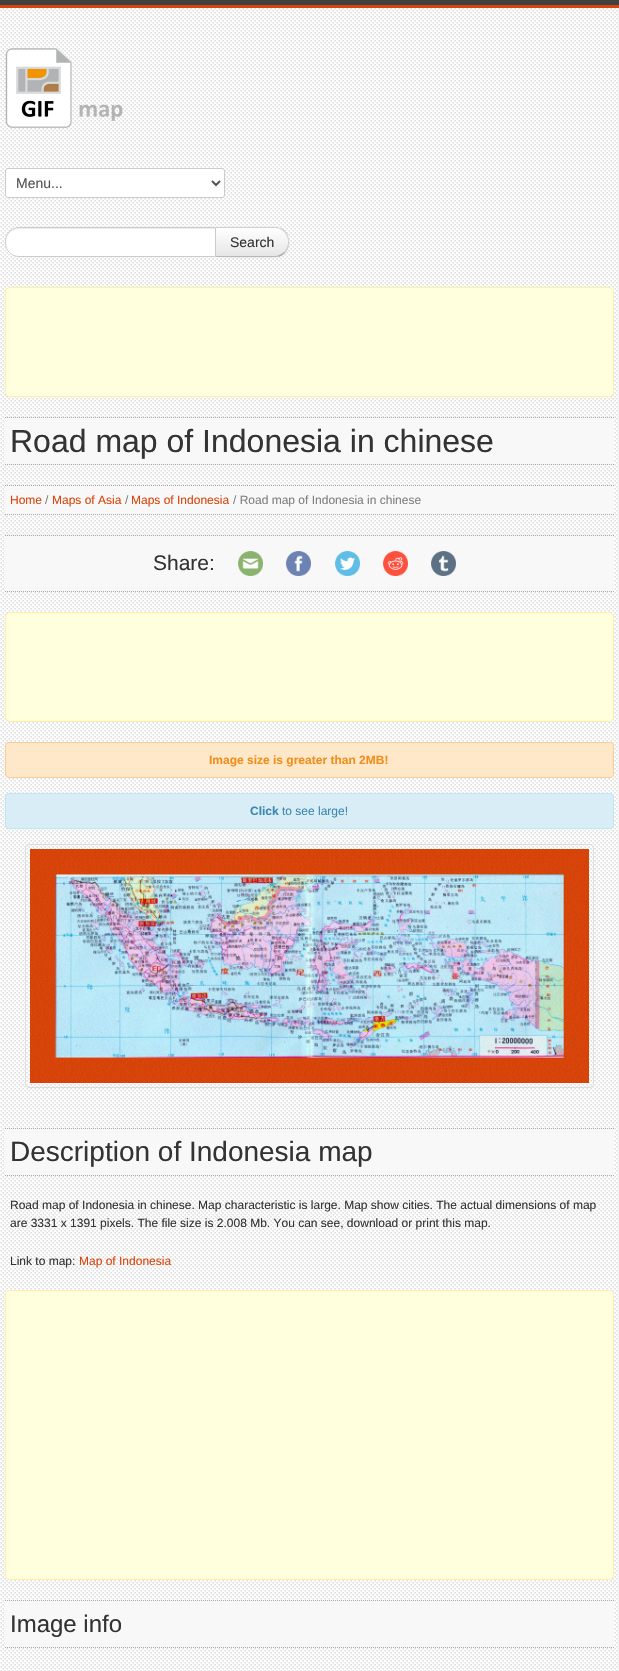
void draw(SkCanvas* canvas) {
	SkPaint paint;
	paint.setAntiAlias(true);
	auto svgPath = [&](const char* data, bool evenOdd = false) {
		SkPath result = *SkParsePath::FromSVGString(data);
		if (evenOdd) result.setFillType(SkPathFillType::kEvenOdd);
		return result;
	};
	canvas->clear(0xffffffff);
	canvas->drawImageRect(SkImages::DeferredFromEncodedData(SkData::MakeFromFileName("img1.png")), SkRect::MakeXYWH(0, 8, 619, 1663), SkSamplingOptions());
	paint.setColor(0xff414141);
	canvas->drawRect(SkRect::MakeXYWH(0, 0, 619, 5), paint);
	paint.setColor(0xffd8450b);
	canvas->drawRect(SkRect::MakeXYWH(0, 5, 619, 3), paint);
	canvas->drawImageRect(SkImages::DeferredFromEncodedData(SkData::MakeFromFileName("img2.png")), SkRect::MakeXYWH(5, 48, 118, 80), SkSamplingOptions());
	paint.setColor(0xffffffff);
	canvas->drawRoundRect(SkRect::MakeXYWH(5.5, 168.5, 219, 29), 2.5, 2.5, paint);
	paint.setStroke(true);
	paint.setStrokeWidth(1);
	paint.setColor(0xffcccccc);
	canvas->drawRoundRect(SkRect::MakeXYWH(5.5, 168.5, 219, 29), 2.5, 2.5, paint);
	paint.setStrokeWidth(2);
	paint.setColor(0xff555555);
	canvas->drawPath(svgPath("M212 181L216 185L220 181"), paint);
	SkFont f1(fontMgr->matchFamilyStyle("Liberation Sans", SkFontStyle::Normal()), 14);
	f1.setSubpixel(true);
	paint.setStroke(false);
	canvas->drawString("Menu...", 16, 188, f1, paint);
	paint.setColor(0x0d000000);
	paint.setMaskFilter(SkMaskFilter::MakeBlur(kNormal_SkBlurStyle, 1));
	canvas->drawRoundRect(SkRect::MakeXYWH(215, 228, 74, 30), 14, 14, paint);
	paint.setMaskFilter(nullptr);
	paint.setColor(0xfff5f5f5);
	canvas->drawPath(svgPath("M215 227H275C282.5 227 289 233.5 289 241V243C289 250.5 282.5 257 275 257H215Z"), paint);
	canvas->save();
	canvas->clipPath(svgPath("M215 227H275C282.5 227 289 233.5 289 241V243C289 250.5 282.5 257 275 257H215Z"), true);
	{
		const SkColor colors[] = {0xffffffff, 0xffe6e6e6};
		const float stops[] = {0, 1};
		const SkPoint ends[] = {{252, 228}, {252, 256}};
		paint.setShader(SkGradientShader::MakeLinear(ends, colors, stops, 2, SkTileMode::kClamp));
		paint.setAlpha(255);
	}
	canvas->drawRect(SkRect::MakeXYWH(216, 228, 73, 28), paint);
	canvas->restore();
	paint.setShader(nullptr);
	paint.setColor(0x26000000);
	canvas->drawPath(svgPath("M215 227L216 228H275C278 228 282 230 284 232L285 231C282 228 279 227 275 227Z"), paint);
	canvas->drawPath(svgPath("M289 243C289 238.5 288.5 234.5 285 231L284 232C289.5 237 289.5 247 284 252L285 253C287.5 250.5 289 247 289 243Z"), paint);
	paint.setColor(0x40000000);
	canvas->drawPath(svgPath("M275 257C279 257 282 256 285 253L284 252C282 254 278 256 275 256H216L215 257Z"), paint);
	paint.setColor(0xffffffff);
	canvas->drawPath(svgPath("M19 227H216V257H19C11.5 257 5 250.5 5 243V241C5 233.5 11.5 227 19 227Z"), paint);
	paint.setColor(0xffececec);
	canvas->drawPath(svgPath("M19 229H215V228H19C12 228 6 233 6 240C7 234 12 229 19 229Z"), paint);
	paint.setStroke(true);
	paint.setStrokeWidth(1);
	paint.setColor(0xffcccccc);
	canvas->drawPath(svgPath("M19 227.5H215.5V256.5H19C11.5 256.5 5.5 250.5 5.5 243V241C5.5 233.5 11.5 227.5 19 227.5Z"), paint);
	paint.setStroke(false);
	paint.setColor(0xff333333);
	canvas->drawString("Search", 230, 247, f1, paint);
	paint.setColor(0xffffffdd);
	canvas->drawRoundRect(SkRect::MakeXYWH(5.5, 287.5, 608, 109), 4.5, 4.5, paint);
	paint.setStroke(true);
	paint.setColor(0xffffeeaa);
	canvas->drawRoundRect(SkRect::MakeXYWH(5.5, 287.5, 608, 109), 4.5, 4.5, paint);
	paint.setStroke(false);
	paint.setColor(0xfff8f8f8);
	canvas->drawRect(SkRect::MakeXYWH(5, 417, 609, 48), paint);
	paint.setStroke(true);
	paint.setColor(0xffa9a9a9);
	paint.setPathEffect(SkDashPathEffect::Make({{1, 1}}, 0));
	canvas->drawPath(svgPath("M5 417.5H614"), paint);
	paint.setPathEffect(nullptr);
	paint.setPathEffect(SkDashPathEffect::Make({{1, 1}}, 0));
	canvas->drawPath(svgPath("M5 464.5H614"), paint);
	paint.setPathEffect(nullptr);
	SkFont f2(fontMgr->matchFamilyStyle("Liberation Sans", SkFontStyle::Normal()), 32);
	f2.setSubpixel(true);
	paint.setStroke(false);
	paint.setColor(0xff333333);
	canvas->drawString("Road map of Indonesia in chinese", 10, 452, f2, paint);
	paint.setColor(0xfff8f8f8);
	canvas->drawRect(SkRect::MakeXYWH(5, 485, 609, 30), paint);
	paint.setStroke(true);
	paint.setColor(0xffa9a9a9);
	paint.setPathEffect(SkDashPathEffect::Make({{1, 1}}, 0));
	canvas->drawPath(svgPath("M5 485.5H614"), paint);
	paint.setPathEffect(nullptr);
	paint.setPathEffect(SkDashPathEffect::Make({{1, 1}}, 0));
	canvas->drawPath(svgPath("M5 514.5H614"), paint);
	paint.setPathEffect(nullptr);
	SkFont f3(fontMgr->matchFamilyStyle("Liberation Sans", SkFontStyle::Normal()), 12);
	f3.setSubpixel(true);
	paint.setStroke(false);
	paint.setColor(0xffd8450b);
	canvas->drawString("Home", 10, 504, f3, paint);
	paint.setColor(0xff7f7f7f);
	canvas->drawString("/", 45, 504, f3, paint);
	paint.setColor(0xffd8450b);
	canvas->drawString("Maps of Asia", 52, 504, f3, paint);
	paint.setColor(0xff7f7f7f);
	canvas->drawString("/", 125, 504, f3, paint);
	paint.setColor(0xffd8450b);
	canvas->drawString("Maps of Indonesia", 131, 504, f3, paint);
	paint.setColor(0xff7f7f7f);
	canvas->drawString("/ Road map of Indonesia in chinese", 233, 504, f3, paint);
	paint.setColor(0xfff8f8f8);
	canvas->drawRect(SkRect::MakeXYWH(5, 535, 609, 57), paint);
	paint.setStroke(true);
	paint.setColor(0xffa9a9a9);
	paint.setPathEffect(SkDashPathEffect::Make({{1, 1}}, 0));
	canvas->drawPath(svgPath("M5 535.5H614"), paint);
	paint.setPathEffect(nullptr);
	paint.setPathEffect(SkDashPathEffect::Make({{1, 1}}, 0));
	canvas->drawPath(svgPath("M5 591.5H614"), paint);
	paint.setPathEffect(nullptr);
	SkFont f4(fontMgr->matchFamilyStyle("Liberation Sans", SkFontStyle::Normal()), 21);
	f4.setSubpixel(true);
	paint.setStroke(false);
	paint.setColor(0xff333333);
	canvas->drawString("Share:", 153, 570, f4, paint);
	canvas->drawImageRect(SkImages::DeferredFromEncodedData(SkData::MakeFromFileName("img3.png")), SkRect::MakeXYWH(238, 551, 25, 25), SkSamplingOptions());
	canvas->drawImageRect(SkImages::DeferredFromEncodedData(SkData::MakeFromFileName("img4.png")), SkRect::MakeXYWH(286, 551, 25, 25), SkSamplingOptions());
	canvas->drawImageRect(SkImages::DeferredFromEncodedData(SkData::MakeFromFileName("img5.png")), SkRect::MakeXYWH(335, 551, 25, 25), SkSamplingOptions());
	canvas->drawImageRect(SkImages::DeferredFromEncodedData(SkData::MakeFromFileName("img6.png")), SkRect::MakeXYWH(383, 551, 25, 25), SkSamplingOptions());
	canvas->drawImageRect(SkImages::DeferredFromEncodedData(SkData::MakeFromFileName("img7.png")), SkRect::MakeXYWH(431, 551, 25, 25), SkSamplingOptions());
	paint.setColor(0xffffffdd);
	canvas->drawRoundRect(SkRect::MakeXYWH(5.5, 612.5, 608, 109), 4.5, 4.5, paint);
	paint.setStroke(true);
	paint.setColor(0xffffeeaa);
	canvas->drawRoundRect(SkRect::MakeXYWH(5.5, 612.5, 608, 109), 4.5, 4.5, paint);
	paint.setStroke(false);
	paint.setColor(0xffffe7ca);
	canvas->drawRoundRect(SkRect::MakeXYWH(5.5, 742.5, 608, 35), 3.5, 3.5, paint);
	paint.setStroke(true);
	paint.setColor(0xffffca8c);
	canvas->drawRoundRect(SkRect::MakeXYWH(5.5, 742.5, 608, 35), 3.5, 3.5, paint);
	SkFont f5(fontMgr->matchFamilyStyle("Liberation Sans", SkFontStyle::Bold()), 12);
	f5.setSubpixel(true);
	paint.setStroke(false);
	paint.setColor(0xfff08e1a);
	canvas->drawString("Image size is greater than 2MB!", 209, 764, f5, paint);
	paint.setColor(0xffd9edf7);
	canvas->drawRoundRect(SkRect::MakeXYWH(5.5, 793.5, 608, 35), 3.5, 3.5, paint);
	paint.setStroke(true);
	paint.setColor(0xffbce8f1);
	canvas->drawRoundRect(SkRect::MakeXYWH(5.5, 793.5, 608, 35), 3.5, 3.5, paint);
	paint.setStroke(false);
	paint.setColor(0xff3a87ad);
	canvas->drawString("Click", 250, 815, f5, paint);
	canvas->drawString("to see large!", 282, 815, f3, paint);
	paint.setStroke(true);
	paint.setColor(0xffdddddd);
	canvas->drawRoundRect(SkRect::MakeXYWH(25.5, 844.5, 568, 243), 3.5, 3.5, paint);
	canvas->drawImageRect(SkImages::DeferredFromEncodedData(SkData::MakeFromFileName("img8.png")), SkRect::MakeXYWH(30, 849, 559, 234), SkSamplingOptions());
	paint.setStroke(false);
	paint.setColor(0xfff8f8f8);
	canvas->drawRect(SkRect::MakeXYWH(5, 1128, 609, 48), paint);
	paint.setStroke(true);
	paint.setColor(0xffa9a9a9);
	paint.setPathEffect(SkDashPathEffect::Make({{1, 1}}, 0));
	canvas->drawPath(svgPath("M5 1128.5H614"), paint);
	paint.setPathEffect(nullptr);
	paint.setPathEffect(SkDashPathEffect::Make({{1, 1}}, 0));
	canvas->drawPath(svgPath("M5 1175.5H614"), paint);
	paint.setPathEffect(nullptr);
	SkFont f6(fontMgr->matchFamilyStyle("Liberation Sans", SkFontStyle::Normal()), 28);
	f6.setSubpixel(true);
	paint.setStroke(false);
	paint.setColor(0xff333333);
	canvas->drawString("Description of Indonesia map", 10, 1161, f6, paint);
	canvas->drawString("Road map of Indonesia in chinese. Map characteristic is large. Map show cities. The actual dimensions of map", 10, 1209, f3, paint);
	canvas->drawString("are 3331 x 1391 pixels. The file size is 2.008 Mb. You can see, download or print this map.", 10, 1227, f3, paint);
	canvas->drawString("Link to map:", 10, 1265, f3, paint);
	paint.setColor(0xffd8450b);
	canvas->drawString("Map of Indonesia", 79, 1265, f3, paint);
	paint.setColor(0xffffffdd);
	canvas->drawRoundRect(SkRect::MakeXYWH(5.5, 1290.5, 608, 289), 4.5, 4.5, paint);
	paint.setStroke(true);
	paint.setColor(0xffffeeaa);
	canvas->drawRoundRect(SkRect::MakeXYWH(5.5, 1290.5, 608, 289), 4.5, 4.5, paint);
	paint.setStroke(false);
	paint.setColor(0xfff8f8f8);
	canvas->drawRect(SkRect::MakeXYWH(5, 1600, 609, 48), paint);
	paint.setStroke(true);
	paint.setColor(0xffa9a9a9);
	paint.setPathEffect(SkDashPathEffect::Make({{1, 1}}, 0));
	canvas->drawPath(svgPath("M5 1600.5H614"), paint);
	paint.setPathEffect(nullptr);
	paint.setPathEffect(SkDashPathEffect::Make({{1, 1}}, 0));
	canvas->drawPath(svgPath("M5 1647.5H614"), paint);
	paint.setPathEffect(nullptr);
	SkFont f7(fontMgr->matchFamilyStyle("Liberation Sans", SkFontStyle::Normal()), 24);
	f7.setSubpixel(true);
	paint.setStroke(false);
	paint.setColor(0xff333333);
	canvas->drawString("Image info", 10, 1632, f7, paint);
}
